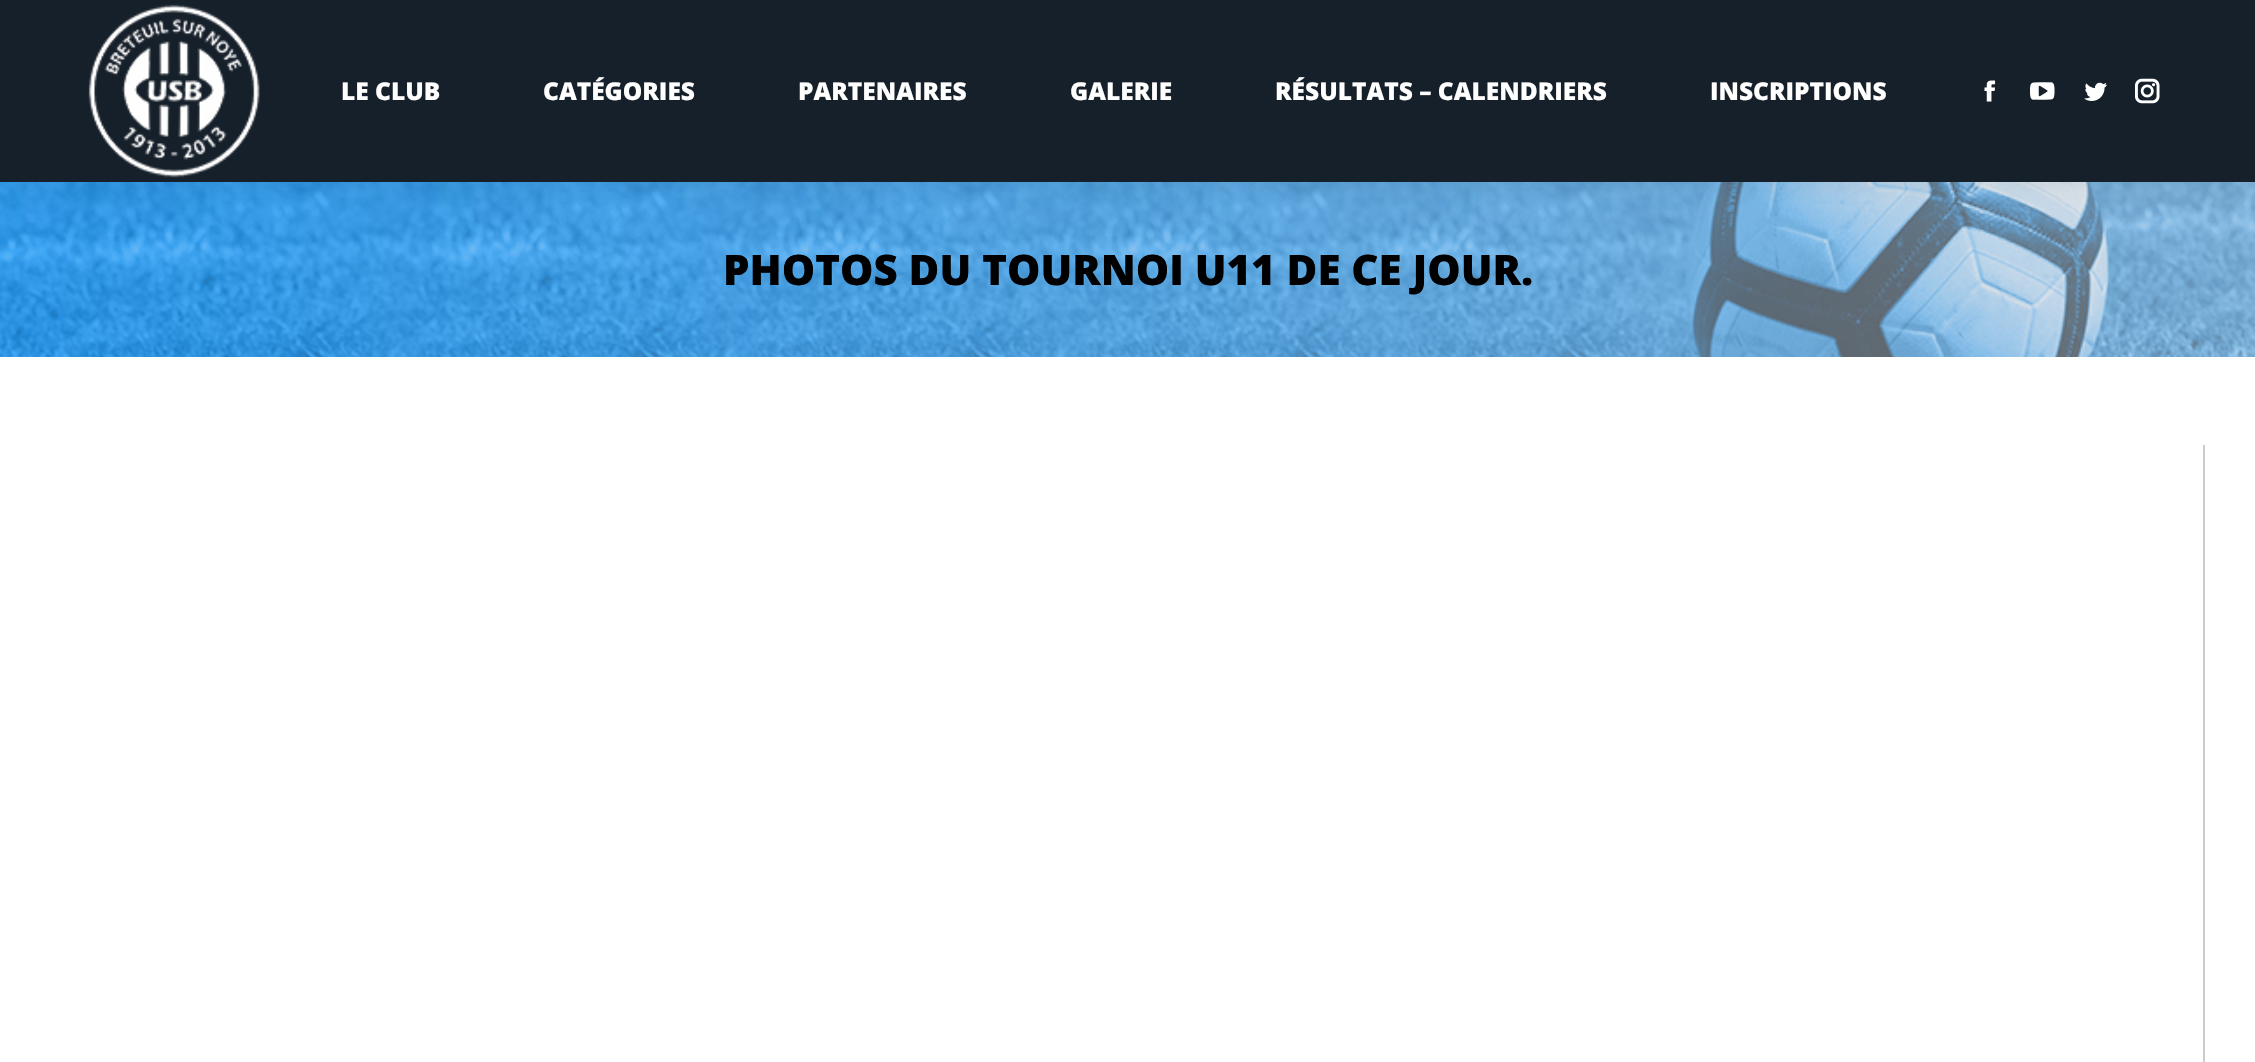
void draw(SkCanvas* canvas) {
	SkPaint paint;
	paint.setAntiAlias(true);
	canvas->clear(0xffffffff);
	canvas->drawImageRect(SkImages::DeferredFromEncodedData(SkData::MakeFromFileName("img6.png")), SkRect::MakeXYWH(0, 182, 2255, 175), SkSamplingOptions());
	paint.setColor(0x12000000);
	paint.setMaskFilter(SkMaskFilter::MakeBlur(kNormal_SkBlurStyle, 13));
	canvas->drawRect(SkRect::MakeXYWH(-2, -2, 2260, 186), paint);
	paint.setMaskFilter(nullptr);
	paint.setColor(0xff16202b);
	canvas->drawRect(SkRect::MakeXYWH(0, 0, 2255, 182), paint);
	canvas->drawImageRect(SkImages::DeferredFromEncodedData(SkData::MakeFromFileName("img1.png")), SkRect::MakeXYWH(88, 4, 172, 174), SkSamplingOptions());
	SkFont f1(fontMgr->matchFamilyStyle("Open Sans", SkFontStyle(800, SkFontStyle::kNormal_Width, SkFontStyle::kUpright_Slant)), 24.5);
	f1.setSubpixel(true);
	paint.setColor(0xffffffff);
	canvas->drawString("LE CLUB", 341, 100, f1, paint);
	canvas->drawString("CATÉGORIES", 543, 100, f1, paint);
	canvas->drawString("PARTENAIRES", 798, 100, f1, paint);
	canvas->drawString("GALERIE", 1070, 100, f1, paint);
	canvas->drawString("RÉSULTATS – CALENDRIERS", 1275, 100, f1, paint);
	canvas->drawString("INSCRIPTIONS", 1710, 100, f1, paint);
	canvas->drawImageRect(SkImages::DeferredFromEncodedData(SkData::MakeFromFileName("img2.png")), SkRect::MakeXYWH(1984, 80, 12, 22), SkSamplingOptions());
	canvas->drawImageRect(SkImages::DeferredFromEncodedData(SkData::MakeFromFileName("img3.png")), SkRect::MakeXYWH(2030, 82, 25, 18), SkSamplingOptions());
	canvas->drawImageRect(SkImages::DeferredFromEncodedData(SkData::MakeFromFileName("img4.png")), SkRect::MakeXYWH(2084, 82, 23, 19), SkSamplingOptions());
	canvas->drawImageRect(SkImages::DeferredFromEncodedData(SkData::MakeFromFileName("img5.png")), SkRect::MakeXYWH(2135, 78, 25, 26), SkSamplingOptions());
	SkFont f2(fontMgr->matchFamilyStyle("Open Sans", SkFontStyle(800, SkFontStyle::kNormal_Width, SkFontStyle::kUpright_Slant)), 42);
	f2.setSubpixel(true);
	paint.setColor(0xff000000);
	canvas->drawString("PHOTOS DU TOURNOI U11 DE CE JOUR.", 723, 285, f2, paint);
	paint.setColor(0xffcccccc);
	canvas->drawRect(SkRect::MakeXYWH(2203, 445, 2, 617), paint);
}
